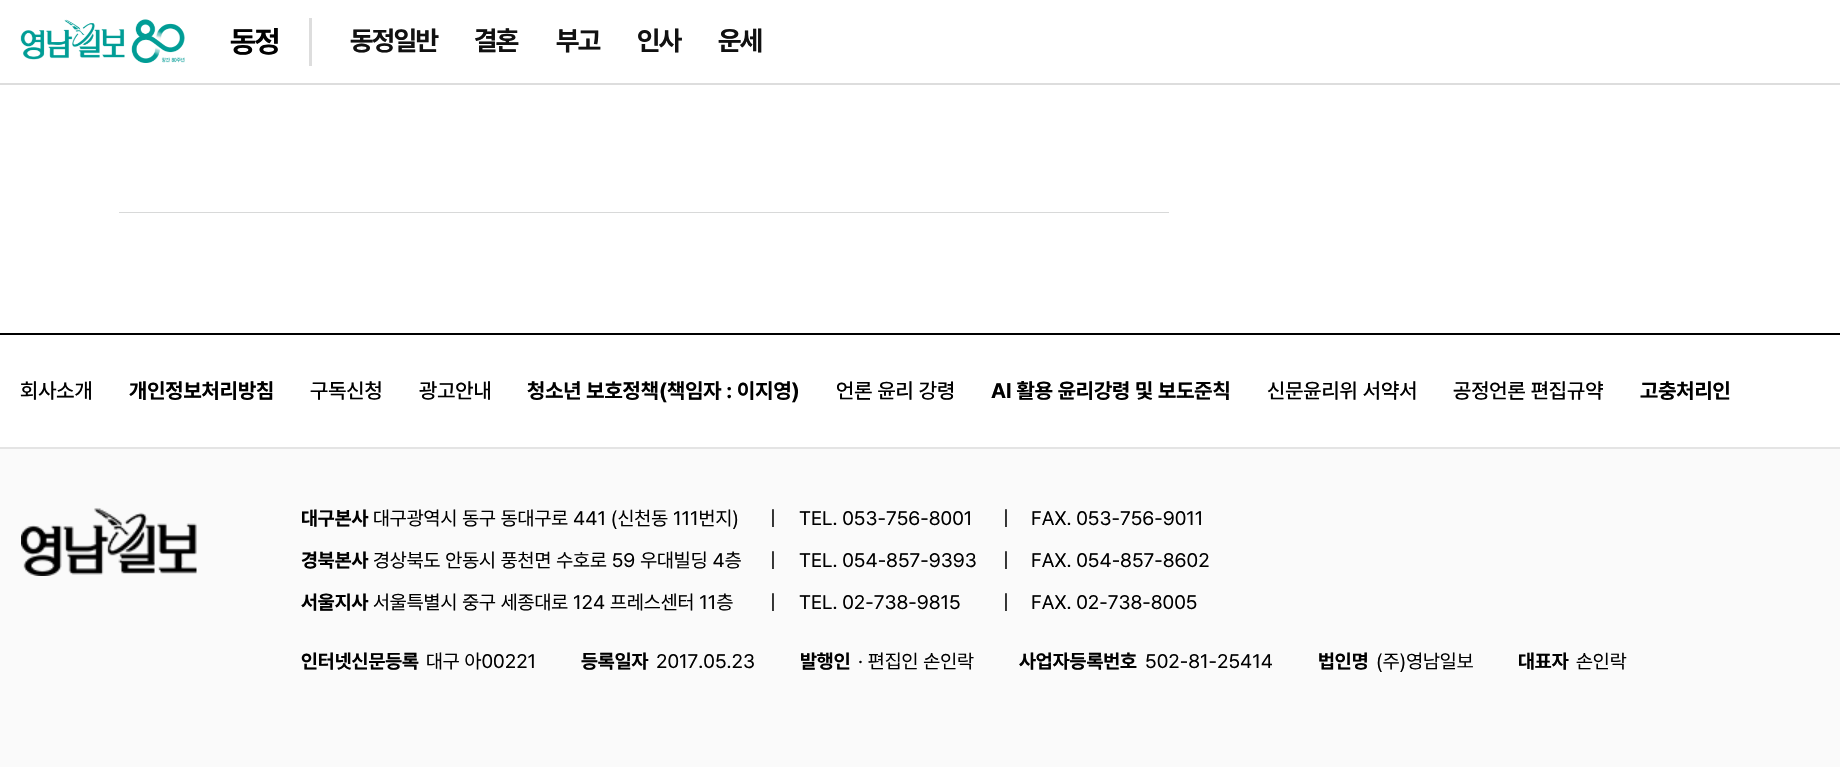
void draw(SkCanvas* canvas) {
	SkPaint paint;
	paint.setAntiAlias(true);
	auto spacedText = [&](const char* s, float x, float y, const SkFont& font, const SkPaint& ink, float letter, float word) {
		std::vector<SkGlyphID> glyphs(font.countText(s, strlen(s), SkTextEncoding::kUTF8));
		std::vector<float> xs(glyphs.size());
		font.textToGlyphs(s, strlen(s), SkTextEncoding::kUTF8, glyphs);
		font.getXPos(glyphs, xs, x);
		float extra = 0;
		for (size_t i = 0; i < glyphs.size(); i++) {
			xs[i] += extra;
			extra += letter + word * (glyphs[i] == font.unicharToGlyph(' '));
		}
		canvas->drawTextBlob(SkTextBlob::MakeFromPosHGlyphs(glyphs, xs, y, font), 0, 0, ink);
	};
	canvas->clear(0xffffffff);
	paint.setColor(0xffdddddd);
	canvas->drawRect(SkRect::MakeXYWH(0, 83, 1840, 2), paint);
	canvas->drawImageRect(SkImages::DeferredFromEncodedData(SkData::MakeFromFileName("img1.png")), SkRect::MakeXYWH(20, 19, 165, 44), SkSamplingOptions());
	canvas->drawRect(SkRect::MakeXYWH(309, 18, 3, 48), paint);
	SkFont f1(fontMgr->matchFamilyStyle("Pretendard", SkFontStyle::Bold()), 30);
	f1.setSubpixel(true);
	paint.setColor(0xff000000);
	spacedText("동정", 230, 52, f1, paint, -1.5, 0);
	SkFont f2(fontMgr->matchFamilyStyle("Pretendard", SkFontStyle::Bold()), 27);
	f2.setSubpixel(true);
	paint.setColor(0xff111111);
	spacedText("동정일반", 350, 50, f2, paint, -1.5, 0);
	spacedText("결혼", 474, 50, f2, paint, -1.5, 0);
	spacedText("부고", 556, 50, f2, paint, -1.5, 0);
	spacedText("인사", 637, 50, f2, paint, -1.5, 0);
	spacedText("운세", 718, 50, f2, paint, -1.5, 0);
	paint.setColor(0xffd8d9d9);
	canvas->drawRect(SkRect::MakeXYWH(119, 212, 1050, 1), paint);
	paint.setColor(0xff000000);
	canvas->drawRect(SkRect::MakeXYWH(0, 333, 1840, 2), paint);
	paint.setColor(0xffe4e4e4);
	canvas->drawRect(SkRect::MakeXYWH(0, 447, 1840, 2), paint);
	SkFont f3(fontMgr->matchFamilyStyle("Pretendard", SkFontStyle(500, SkFontStyle::kNormal_Width, SkFontStyle::kUpright_Slant)), 21);
	f3.setSubpixel(true);
	paint.setColor(0xff000000);
	canvas->drawString("회사소개", 20, 398, f3, paint);
	SkFont f4(fontMgr->matchFamilyStyle("Pretendard", SkFontStyle::Bold()), 21);
	f4.setSubpixel(true);
	canvas->drawString("개인정보처리방침", 129, 398, f4, paint);
	canvas->drawString("구독신청", 310, 398, f3, paint);
	canvas->drawString("광고안내", 419, 398, f3, paint);
	canvas->drawString("청소년 보호정책(책임자 : 이지영)", 527, 398, f4, paint);
	canvas->drawString("언론 윤리 강령", 836, 398, f3, paint);
	canvas->drawString("AI 활용 윤리강령 및 보도준칙", 991, 398, f4, paint);
	canvas->drawString("신문윤리위 서약서", 1267, 398, f3, paint);
	canvas->drawString("공정언론 편집규약", 1453, 398, f3, paint);
	canvas->drawString("고충처리인", 1640, 398, f4, paint);
	paint.setColor(0xfffafafa);
	canvas->drawRect(SkRect::MakeXYWH(0, 449, 1840, 318), paint);
	canvas->drawImageRect(SkImages::DeferredFromEncodedData(SkData::MakeFromFileName("img2.png")), SkRect::MakeXYWH(21, 508, 176, 68), SkSamplingOptions());
	SkFont f5(fontMgr->matchFamilyStyle("Pretendard", SkFontStyle::Bold()), 19.5);
	f5.setSubpixel(true);
	paint.setColor(0xff000000);
	canvas->drawString("대구본사", 301, 525, f5, paint);
	SkFont f6(fontMgr->matchFamilyStyle("Pretendard", SkFontStyle::Normal()), 19.5);
	f6.setSubpixel(true);
	canvas->drawString("대구광역시 동구 동대구로 441 (신천동 111번지)", 373, 525, f6, paint);
	canvas->drawString("|", 770, 525, f6, paint);
	canvas->drawString("TEL. 053-756-8001", 799, 525, f6, paint);
	canvas->drawString("|", 1003, 525, f6, paint);
	canvas->drawString("FAX. 053-756-9011", 1031, 525, f6, paint);
	canvas->drawString("경북본사", 301, 567, f5, paint);
	canvas->drawString("경상북도 안동시 풍천면 수호로 59 우대빌딩 4층", 373, 567, f6, paint);
	canvas->drawString("|", 770, 567, f6, paint);
	canvas->drawString("TEL. 054-857-9393", 799, 567, f6, paint);
	canvas->drawString("|", 1003, 567, f6, paint);
	canvas->drawString("FAX. 054-857-8602", 1031, 567, f6, paint);
	canvas->drawString("서울지사", 301, 609, f5, paint);
	canvas->drawString("서울특별시 중구 세종대로 124 프레스센터 11층", 373, 609, f6, paint);
	canvas->drawString("|", 770, 609, f6, paint);
	canvas->drawString("TEL. 02-738-9815", 799, 609, f6, paint);
	canvas->drawString("|", 1003, 609, f6, paint);
	canvas->drawString("FAX. 02-738-8005", 1031, 609, f6, paint);
	canvas->drawString("인터넷신문등록", 301, 668, f5, paint);
	canvas->drawString("대구 아00221", 426, 668, f6, paint);
	canvas->drawString("등록일자", 581, 668, f5, paint);
	canvas->drawString("2017.05.23", 656, 668, f6, paint);
	canvas->drawString("발행인", 800, 668, f5, paint);
	canvas->drawString("· 편집인 손인락", 858, 668, f6, paint);
	canvas->drawString("사업자등록번호", 1019, 668, f5, paint);
	canvas->drawString("502-81-25414", 1145, 668, f6, paint);
	canvas->drawString("법인명", 1318, 668, f5, paint);
	canvas->drawString("(주)영남일보", 1376, 668, f6, paint);
	canvas->drawString("대표자", 1518, 668, f5, paint);
	canvas->drawString("손인락", 1576, 668, f6, paint);
}
